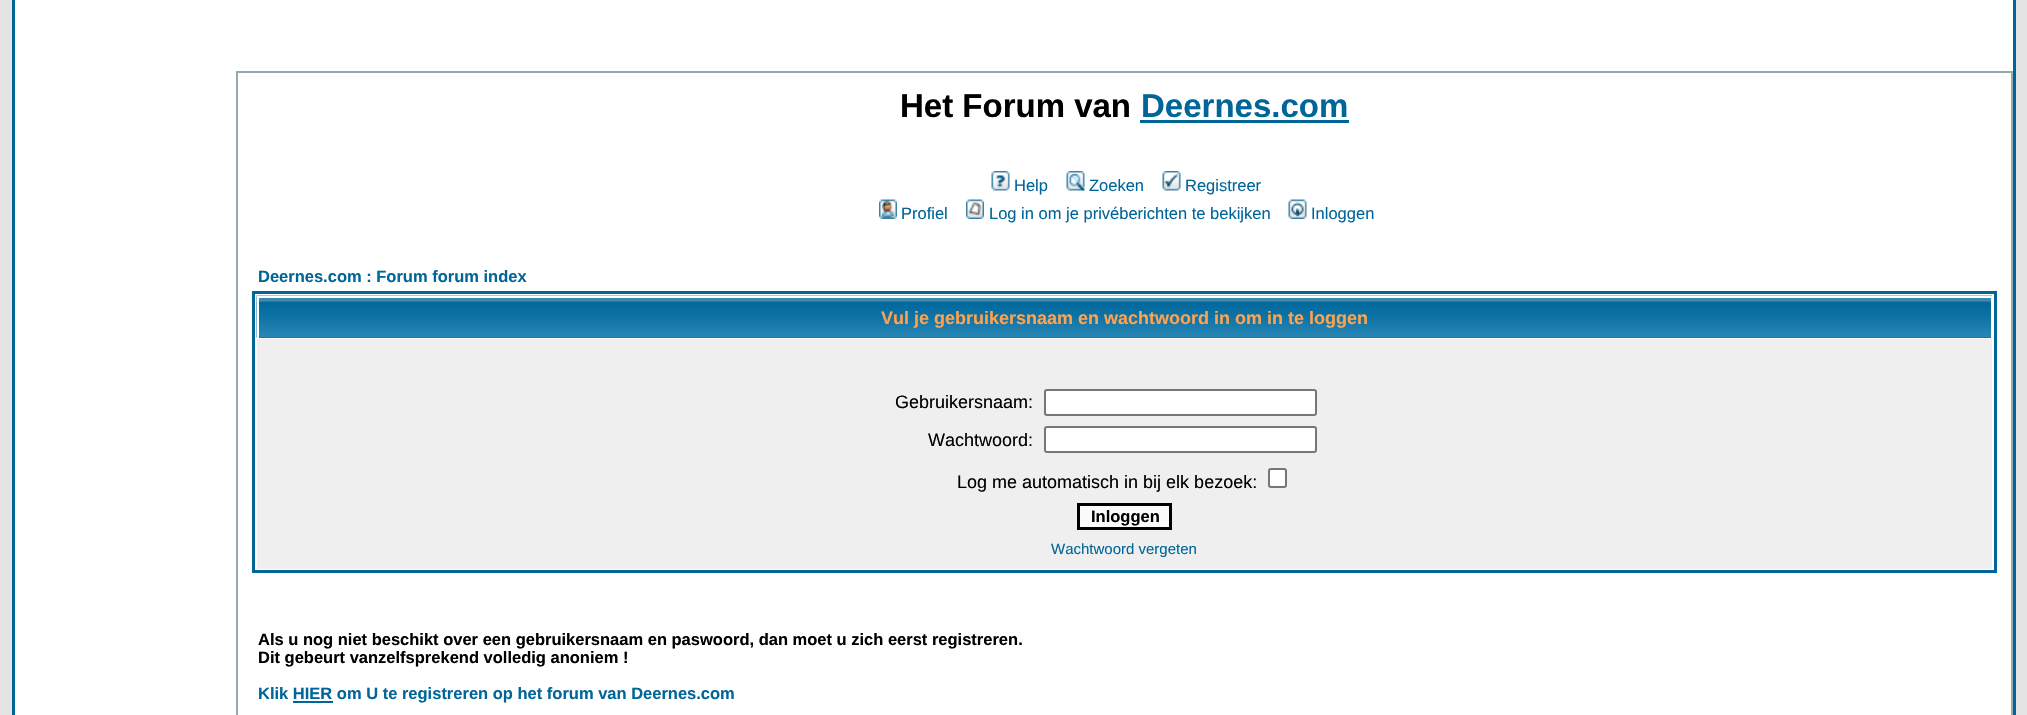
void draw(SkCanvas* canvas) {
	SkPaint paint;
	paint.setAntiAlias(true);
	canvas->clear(0xffe5e5e5);
	paint.setColor(0xffffffff);
	canvas->drawRect(SkRect::MakeXYWH(13.5, -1.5, 2001, 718), paint);
	paint.setStroke(true);
	paint.setStrokeWidth(3);
	paint.setColor(0xff006699);
	canvas->drawRect(SkRect::MakeXYWH(13.5, -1.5, 2001, 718), paint);
	paint.setStrokeWidth(2);
	paint.setColor(0xff98aab1);
	canvas->drawRect(SkRect::MakeXYWH(237, 72, 1775, 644), paint);
	SkFont f1(fontMgr->matchFamilyStyle("Liberation Sans", SkFontStyle::Bold()), 33);
	f1.setSubpixel(true);
	paint.setStroke(false);
	paint.setColor(0xff000000);
	canvas->drawString("Het Forum van", 900, 117, f1, paint);
	paint.setColor(0xff006699);
	canvas->drawString("Deernes.com", 1141, 117, f1, paint);
	canvas->drawRect(SkRect::MakeXYWH(1140, 120, 209, 3), paint);
	canvas->drawImageRect(SkImages::DeferredFromEncodedData(SkData::MakeFromFileName("img1.png")), SkRect::MakeXYWH(991, 171, 19, 20), SkSamplingOptions());
	SkFont f2(fontMgr->matchFamilyStyle("Liberation Sans", SkFontStyle::Normal()), 16.5);
	f2.setSubpixel(true);
	canvas->drawString("Help", 1014, 191, f2, paint);
	canvas->drawImageRect(SkImages::DeferredFromEncodedData(SkData::MakeFromFileName("img2.png")), SkRect::MakeXYWH(1066, 171, 19, 20), SkSamplingOptions());
	canvas->drawString("Zoeken", 1089, 191, f2, paint);
	canvas->drawImageRect(SkImages::DeferredFromEncodedData(SkData::MakeFromFileName("img3.png")), SkRect::MakeXYWH(1162, 171, 19, 20), SkSamplingOptions());
	canvas->drawString("Registreer", 1185, 191, f2, paint);
	canvas->drawImageRect(SkImages::DeferredFromEncodedData(SkData::MakeFromFileName("img4.png")), SkRect::MakeXYWH(879, 199, 18, 20), SkSamplingOptions());
	canvas->drawString("Profiel", 901, 219, f2, paint);
	canvas->drawImageRect(SkImages::DeferredFromEncodedData(SkData::MakeFromFileName("img5.png")), SkRect::MakeXYWH(966, 199, 18, 20), SkSamplingOptions());
	canvas->drawString("Log in om je privéberichten te bekijken", 989, 219, f2, paint);
	canvas->drawImageRect(SkImages::DeferredFromEncodedData(SkData::MakeFromFileName("img6.png")), SkRect::MakeXYWH(1288, 199, 19, 20), SkSamplingOptions());
	canvas->drawString("Inloggen", 1311, 219, f2, paint);
	SkFont f3(fontMgr->matchFamilyStyle("Liberation Sans", SkFontStyle::Bold()), 16.5);
	f3.setSubpixel(true);
	canvas->drawString("Deernes.com : Forum forum index", 258, 282, f3, paint);
	paint.setStroke(true);
	paint.setStrokeWidth(3);
	canvas->drawRect(SkRect::MakeXYWH(253.5, 292.5, 1742, 279), paint);
	paint.setStroke(false);
	canvas->drawRect(SkRect::MakeXYWH(259, 337, 1732, 1), paint);
	canvas->drawImageRect(SkImages::DeferredFromEncodedData(SkData::MakeFromFileName("img7.png")), SkRect::MakeXYWH(256, 295, 1736, 43), SkSamplingOptions());
	paint.setColor(0xffffffff);
	canvas->drawRect(SkRect::MakeXYWH(257, 296, 1735, 2), paint);
	canvas->drawRect(SkRect::MakeXYWH(1991, 296, 1, 42), paint);
	canvas->drawRect(SkRect::MakeXYWH(257, 296, 2, 42), paint);
	SkFont f4(fontMgr->matchFamilyStyle("Liberation Sans", SkFontStyle::Bold()), 18);
	f4.setSubpixel(true);
	paint.setColor(0xffffa34f);
	canvas->drawString("Vul je gebruikersnaam en wachtwoord in om in te loggen", 881, 324, f4, paint);
	paint.setColor(0xffefefef);
	canvas->drawRect(SkRect::MakeXYWH(257, 339, 1735, 230), paint);
	SkFont f5(fontMgr->matchFamilyStyle("Liberation Sans", SkFontStyle::Normal()), 18);
	f5.setSubpixel(true);
	paint.setColor(0xff000000);
	canvas->drawString("Gebruikersnaam:", 895, 408, f5, paint);
	paint.setColor(0xffffffff);
	canvas->drawRoundRect(SkRect::MakeXYWH(1045, 390, 271, 25), 2, 2, paint);
	paint.setStroke(true);
	paint.setStrokeWidth(2);
	paint.setColor(0xff767676);
	canvas->drawRoundRect(SkRect::MakeXYWH(1045, 390, 271, 25), 2, 2, paint);
	paint.setStroke(false);
	paint.setColor(0xff000000);
	canvas->drawString("Wachtwoord:", 928, 446, f5, paint);
	paint.setColor(0xffffffff);
	canvas->drawRoundRect(SkRect::MakeXYWH(1045, 427, 271, 25), 2, 2, paint);
	paint.setStroke(true);
	paint.setColor(0xff767676);
	canvas->drawRoundRect(SkRect::MakeXYWH(1045, 427, 271, 25), 2, 2, paint);
	paint.setStroke(false);
	paint.setColor(0xff000000);
	canvas->drawString("Log me automatisch in bij elk bezoek:", 957, 488, f5, paint);
	paint.setColor(0xffffffff);
	canvas->drawRoundRect(SkRect::MakeXYWH(1269, 469, 17, 18), 2, 2, paint);
	paint.setStroke(true);
	paint.setColor(0xff767676);
	canvas->drawRoundRect(SkRect::MakeXYWH(1269, 469, 17, 18), 2, 2, paint);
	paint.setStroke(false);
	paint.setColor(0xfffafafa);
	canvas->drawRect(SkRect::MakeXYWH(1078.5, 504.5, 92, 24), paint);
	paint.setStroke(true);
	paint.setStrokeWidth(3);
	paint.setColor(0xff000000);
	canvas->drawRect(SkRect::MakeXYWH(1078.5, 504.5, 92, 24), paint);
	paint.setStroke(false);
	canvas->drawString("Inloggen", 1091, 522, f3, paint);
	SkFont f6(fontMgr->matchFamilyStyle("Liberation Sans", SkFontStyle::Normal()), 15);
	f6.setSubpixel(true);
	paint.setColor(0xff006699);
	canvas->drawString("Wachtwoord vergeten", 1051, 554, f6, paint);
	paint.setColor(0xff000000);
	canvas->drawString("Als u nog niet beschikt over een gebruikersnaam en paswoord, dan moet u zich eerst registreren.", 258, 645, f3, paint);
	canvas->drawString("Dit gebeurt vanzelfsprekend volledig anoniem !", 258, 663, f3, paint);
	paint.setColor(0xff006699);
	canvas->drawString("Klik HIER om U te registreren op het forum van Deernes.com", 258, 699, f3, paint);
	canvas->drawRect(SkRect::MakeXYWH(293, 701, 40, 2), paint);
}
